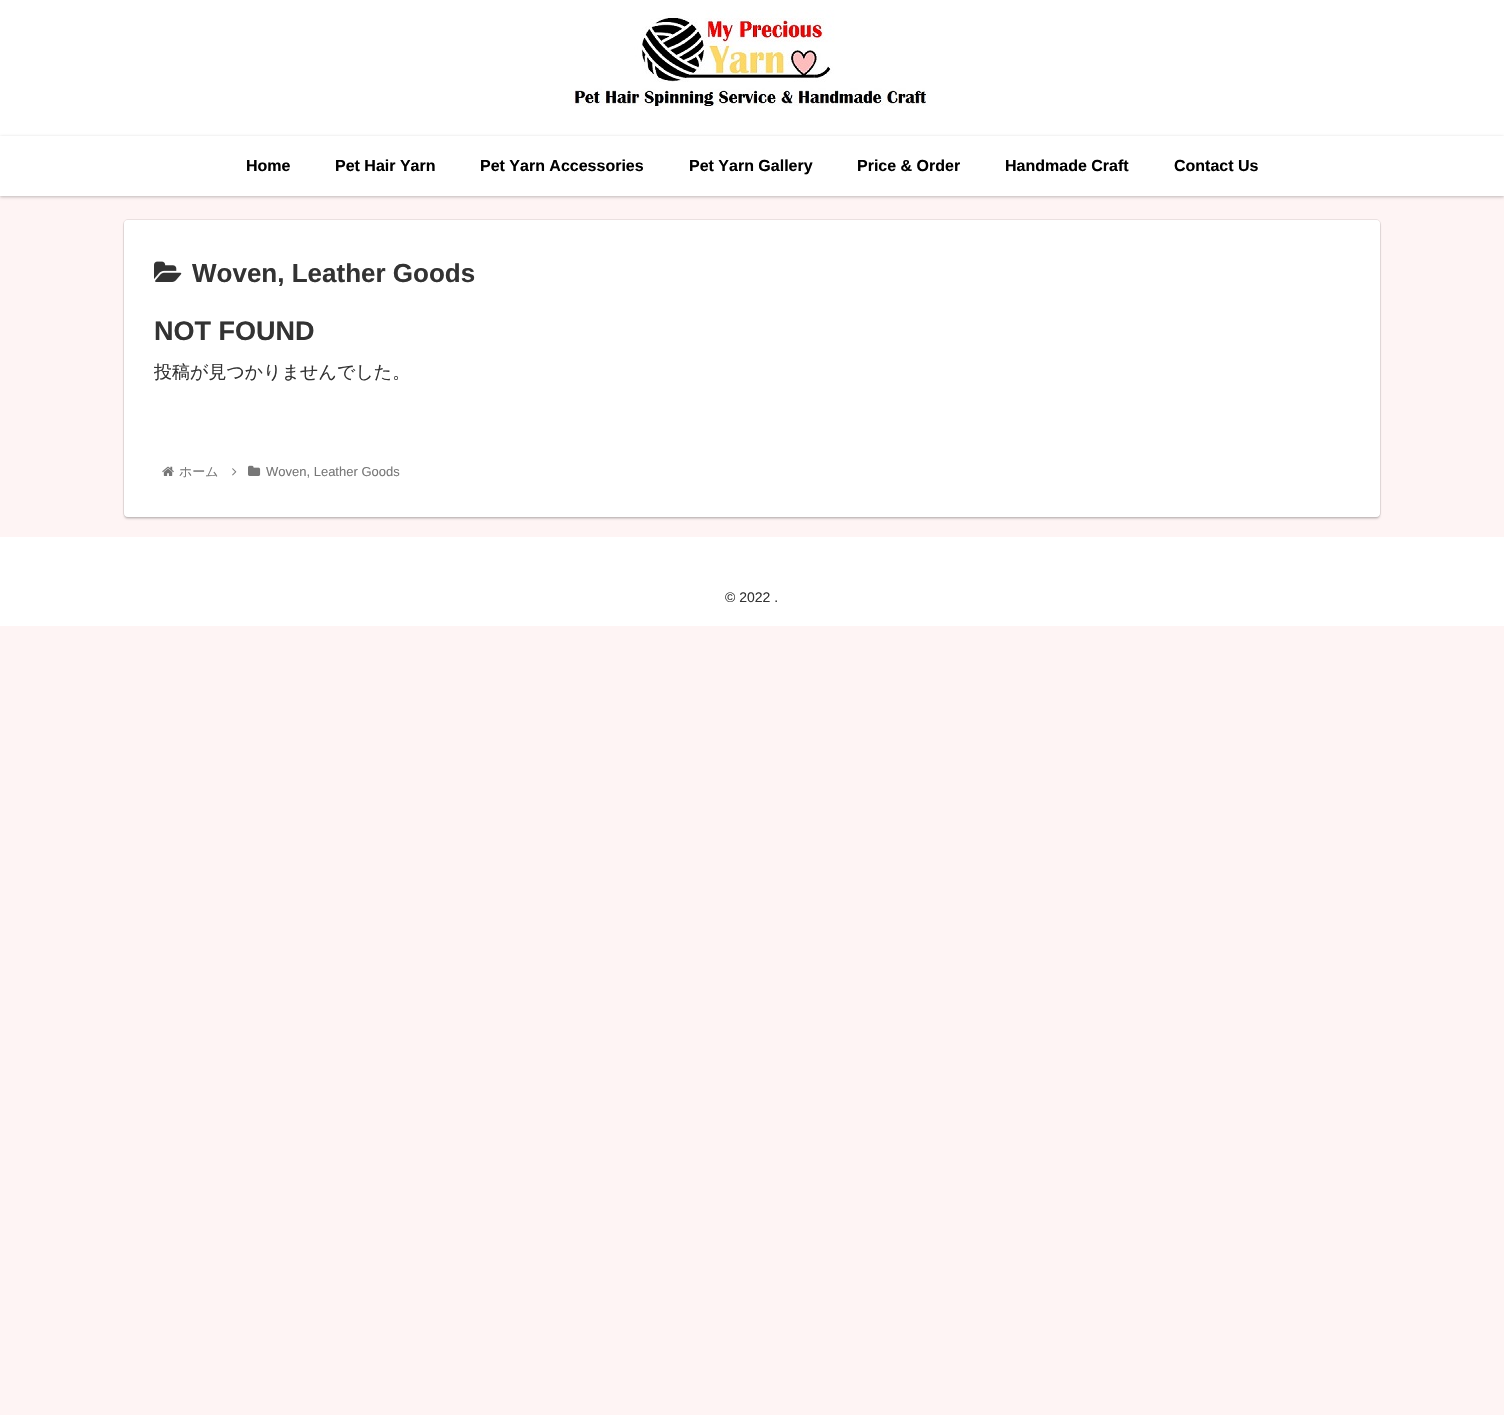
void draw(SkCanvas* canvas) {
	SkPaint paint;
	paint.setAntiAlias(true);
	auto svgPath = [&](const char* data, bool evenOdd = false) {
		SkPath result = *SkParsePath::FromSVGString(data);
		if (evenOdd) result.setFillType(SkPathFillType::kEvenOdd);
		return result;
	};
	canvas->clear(0xfffef4f4);
	paint.setColor(0xffffffff);
	canvas->drawRect(SkRect::MakeXYWH(0, 0, 1504, 196), paint);
	canvas->drawImageRect(SkImages::DeferredFromEncodedData(SkData::MakeFromFileName("img1.png")), SkRect::MakeXYWH(570, 10, 360, 100), SkSamplingOptions());
	canvas->save();
	canvas->clipPath(svgPath("M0 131H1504V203H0ZM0 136H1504V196H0Z", true), true);
	paint.setColor(0x40000000);
	paint.setMaskFilter(SkMaskFilter::MakeBlur(kNormal_SkBlurStyle, 1.5));
	canvas->drawRect(SkRect::MakeXYWH(0, 137, 1504, 60), paint);
	paint.setMaskFilter(nullptr);
	canvas->restore();
	SkFont f1(fontMgr->matchFamilyStyle("Liberation Sans", SkFontStyle::Bold()), 16);
	f1.setSubpixel(true);
	paint.setColor(0xff000000);
	canvas->drawString("Home", 246, 171, f1, paint);
	canvas->drawString("Pet Hair Yarn", 335, 171, f1, paint);
	canvas->drawString("Pet Yarn Accessories", 480, 171, f1, paint);
	canvas->drawString("Pet Yarn Gallery", 689, 171, f1, paint);
	canvas->drawString("Price & Order", 857, 171, f1, paint);
	canvas->drawString("Handmade Craft", 1005, 171, f1, paint);
	canvas->drawString("Contact Us", 1174, 171, f1, paint);
	paint.setStroke(true);
	paint.setStrokeWidth(1);
	paint.setColor(0xffeae0e0);
	canvas->drawRoundRect(SkRect::MakeXYWH(123.5, 219.5, 1257, 298), 4.5, 4.5, paint);
	paint.setStroke(false);
	paint.setColor(0x29000000);
	paint.setMaskFilter(SkMaskFilter::MakeBlur(kNormal_SkBlurStyle, 1));
	canvas->drawRoundRect(SkRect::MakeXYWH(124, 222, 1256, 297), 4, 4, paint);
	paint.setMaskFilter(nullptr);
	paint.setColor(0xffffffff);
	canvas->drawRoundRect(SkRect::MakeXYWH(124, 220, 1256, 297), 4, 4, paint);
	canvas->drawImageRect(SkImages::DeferredFromEncodedData(SkData::MakeFromFileName("img2.png")), SkRect::MakeXYWH(154, 261, 28, 21), SkSamplingOptions());
	SkFont f2(fontMgr->matchFamilyStyle("Liberation Sans", SkFontStyle::Bold()), 26);
	f2.setSubpixel(true);
	paint.setColor(0xff333333);
	canvas->drawString("Woven, Leather Goods", 192, 282, f2, paint);
	SkFont f3(fontMgr->matchFamilyStyle("Liberation Sans", SkFontStyle::Bold()), 27);
	f3.setSubpixel(true);
	canvas->drawString("NOT FOUND", 154, 340, f3, paint);
	SkFont f4(fontMgr->matchFamilyStyle("WenQuanYi Zen Hei", SkFontStyle(500, SkFontStyle::kNormal_Width, SkFontStyle::kUpright_Slant)), 18);
	f4.setSubpixel(true);
	canvas->drawString("投稿が見つかりませんでした。", 154, 378, f4, paint);
	canvas->drawImageRect(SkImages::DeferredFromEncodedData(SkData::MakeFromFileName("img3.png")), SkRect::MakeXYWH(162, 466, 12, 10), SkSamplingOptions());
	SkFont f5(fontMgr->matchFamilyStyle("WenQuanYi Zen Hei", SkFontStyle(500, SkFontStyle::kNormal_Width, SkFontStyle::kUpright_Slant)), 13);
	f5.setSubpixel(true);
	paint.setColor(0xff777777);
	canvas->drawString("ホーム", 179, 476, f5, paint);
	canvas->drawImageRect(SkImages::DeferredFromEncodedData(SkData::MakeFromFileName("img4.png")), SkRect::MakeXYWH(232, 468, 5, 8), SkSamplingOptions());
	canvas->drawImageRect(SkImages::DeferredFromEncodedData(SkData::MakeFromFileName("img5.png")), SkRect::MakeXYWH(248, 465, 13, 11), SkSamplingOptions());
	SkFont f6(fontMgr->matchFamilyStyle("Liberation Sans", SkFontStyle::Normal()), 13);
	f6.setSubpixel(true);
	canvas->drawString("Woven, Leather Goods", 266, 476, f6, paint);
	paint.setColor(0xffffffff);
	canvas->drawRect(SkRect::MakeXYWH(0, 537, 1504, 89), paint);
	SkFont f7(fontMgr->matchFamilyStyle("Liberation Sans", SkFontStyle::Normal()), 14);
	f7.setSubpixel(true);
	paint.setColor(0xff333333);
	canvas->drawString("© 2022 .", 725, 602, f7, paint);
}
